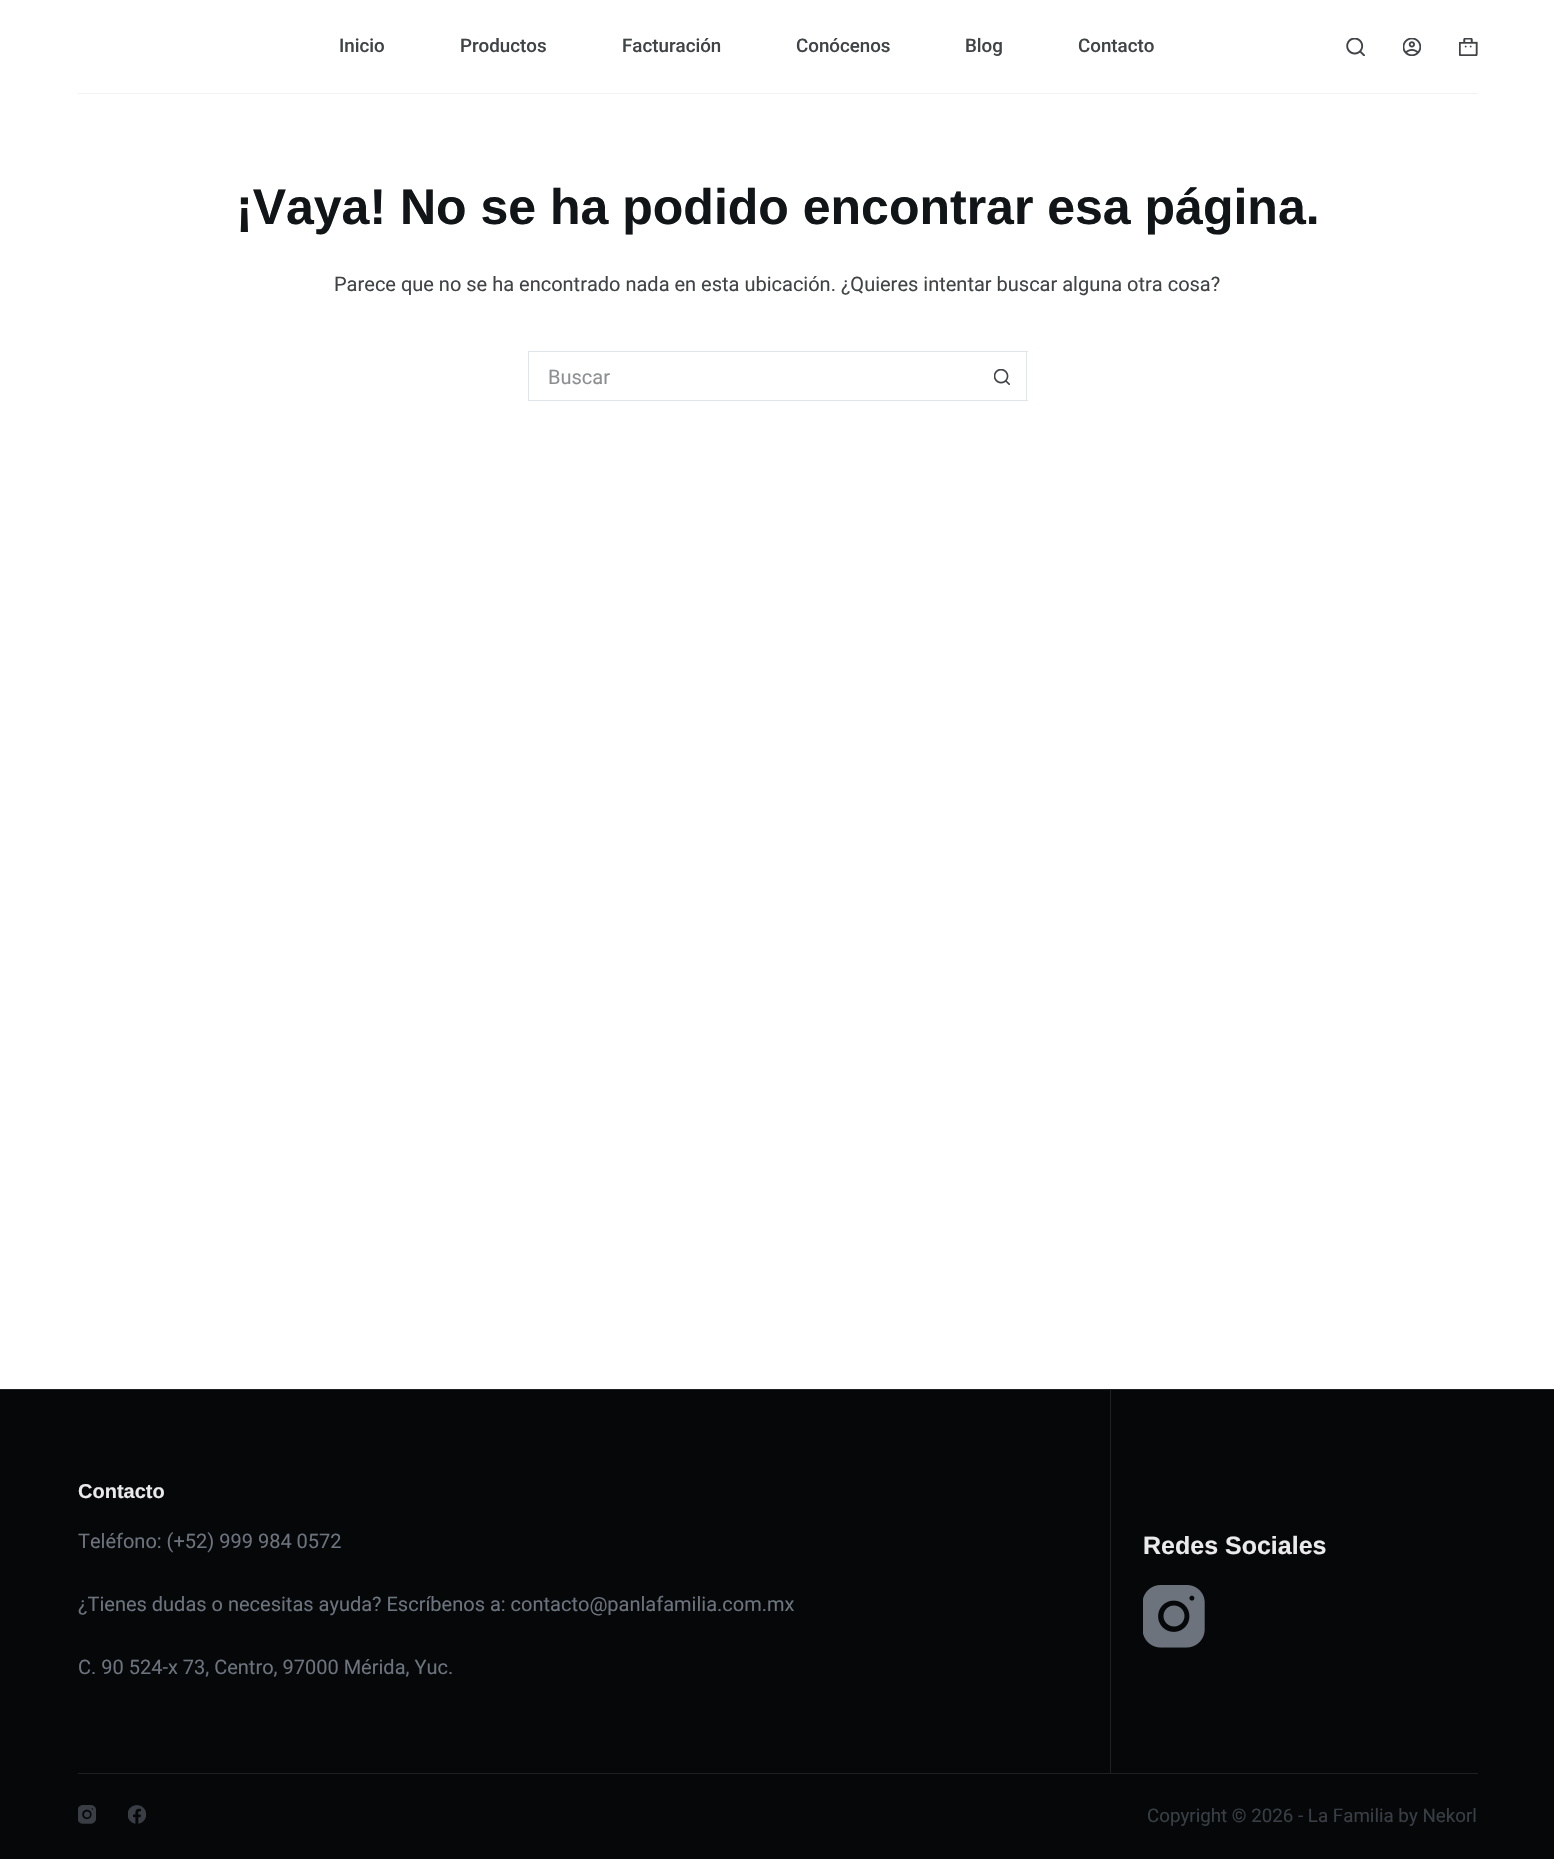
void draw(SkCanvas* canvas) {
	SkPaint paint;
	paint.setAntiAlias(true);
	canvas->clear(0xffffffff);
	paint.setColor(0xfff2f2f2);
	canvas->drawRect(SkRect::MakeXYWH(78, 93, 1400, 1), paint);
	SkFont f1(fontMgr->matchFamilyStyle("Roboto", SkFontStyle(500, SkFontStyle::kNormal_Width, SkFontStyle::kUpright_Slant)), 18.75);
	f1.setSubpixel(true);
	paint.setColor(0xff414447);
	canvas->drawString("Inicio", 339, 52, f1, paint);
	canvas->drawString("Productos", 460, 52, f1, paint);
	canvas->drawString("Facturación", 622, 52, f1, paint);
	canvas->drawString("Conócenos", 796, 52, f1, paint);
	canvas->drawString("Blog", 965, 52, f1, paint);
	canvas->drawString("Contacto", 1078, 52, f1, paint);
	canvas->drawImageRect(SkImages::DeferredFromEncodedData(SkData::MakeFromFileName("img1.png")), SkRect::MakeXYWH(1346, 38, 19, 18), SkSamplingOptions());
	canvas->drawImageRect(SkImages::DeferredFromEncodedData(SkData::MakeFromFileName("img2.png")), SkRect::MakeXYWH(1403, 38, 18, 18), SkSamplingOptions());
	canvas->drawImageRect(SkImages::DeferredFromEncodedData(SkData::MakeFromFileName("img3.png")), SkRect::MakeXYWH(1459, 38, 19, 18), SkSamplingOptions());
	SkFont f2(fontMgr->matchFamilyStyle("Liberation Sans", SkFontStyle::Bold()), 50);
	f2.setSubpixel(true);
	paint.setColor(0xff111518);
	canvas->drawString("¡Vaya! No se ha podido encontrar esa página.", 236, 224, f2, paint);
	SkFont f3(fontMgr->matchFamilyStyle("Roboto", SkFontStyle::Normal()), 20);
	f3.setSubpixel(true);
	paint.setColor(0xff414447);
	canvas->drawString("Parece que no se ha encontrado nada en esta ubicación. ¿Quieres intentar buscar alguna otra cosa?", 334, 291, f3, paint);
	paint.setColor(0xffe0e5eb);
	canvas->drawRect(SkRect::MakeXYWH(528, 351, 500, 1), paint);
	canvas->drawRect(SkRect::MakeXYWH(528, 400, 450, 1), paint);
	canvas->drawRect(SkRect::MakeXYWH(528, 351, 1, 50), paint);
	paint.setColor(0xff8d8f91);
	canvas->drawString("Buscar", 548, 384, f3, paint);
	paint.setColor(0xffe0e5eb);
	canvas->drawRect(SkRect::MakeXYWH(1026, 351, 1, 50), paint);
	canvas->drawRect(SkRect::MakeXYWH(978, 400, 50, 1), paint);
	canvas->drawImageRect(SkImages::DeferredFromEncodedData(SkData::MakeFromFileName("img4.png")), SkRect::MakeXYWH(994, 369, 16, 16), SkSamplingOptions());
	paint.setColor(0xff050709);
	canvas->drawRect(SkRect::MakeXYWH(0, 1390, 1554, 469), paint);
	paint.setColor(0xff1e2022);
	canvas->drawRect(SkRect::MakeXYWH(0, 1389, 1554, 1), paint);
	SkFont f4(fontMgr->matchFamilyStyle("Liberation Sans", SkFontStyle::Bold()), 20);
	f4.setSubpixel(true);
	paint.setColor(0xffeaeaec);
	canvas->drawString("Contacto", 78, 1498, f4, paint);
	paint.setColor(0xff6c737d);
	canvas->drawString("Teléfono: (+52) 999 984 0572", 78, 1548, f3, paint);
	canvas->drawString("¿Tienes dudas o necesitas ayuda? Escríbenos a: contacto@panlafamilia.com.mx", 78, 1611, f3, paint);
	canvas->drawString("C. 90 524-x 73, Centro, 97000 Mérida, Yuc.", 78, 1674, f3, paint);
	paint.setColor(0xff1e2022);
	canvas->drawRect(SkRect::MakeXYWH(1110, 1390, 1, 383), paint);
	SkFont f5(fontMgr->matchFamilyStyle("Liberation Sans", SkFontStyle::Bold()), 25);
	f5.setSubpixel(true);
	paint.setColor(0xffeaeaec);
	canvas->drawString("Redes Sociales", 1143, 1554, f5, paint);
	canvas->drawImageRect(SkImages::DeferredFromEncodedData(SkData::MakeFromFileName("img5.png")), SkRect::MakeXYWH(1143, 1585, 62, 63), SkSamplingOptions());
	paint.setColor(0xff1e2022);
	canvas->drawRect(SkRect::MakeXYWH(78, 1773, 1400, 1), paint);
	canvas->drawImageRect(SkImages::DeferredFromEncodedData(SkData::MakeFromFileName("img6.png")), SkRect::MakeXYWH(78, 1805, 18, 19), SkSamplingOptions());
	canvas->drawImageRect(SkImages::DeferredFromEncodedData(SkData::MakeFromFileName("img7.png")), SkRect::MakeXYWH(128, 1805, 18, 19), SkSamplingOptions());
	SkFont f6(fontMgr->matchFamilyStyle("Roboto", SkFontStyle::Normal()), 18.75);
	f6.setSubpixel(true);
	paint.setColor(0xff393e44);
	canvas->drawString("Copyright © 2026 - La Familia by Nekorl", 1147, 1822, f6, paint);
}
